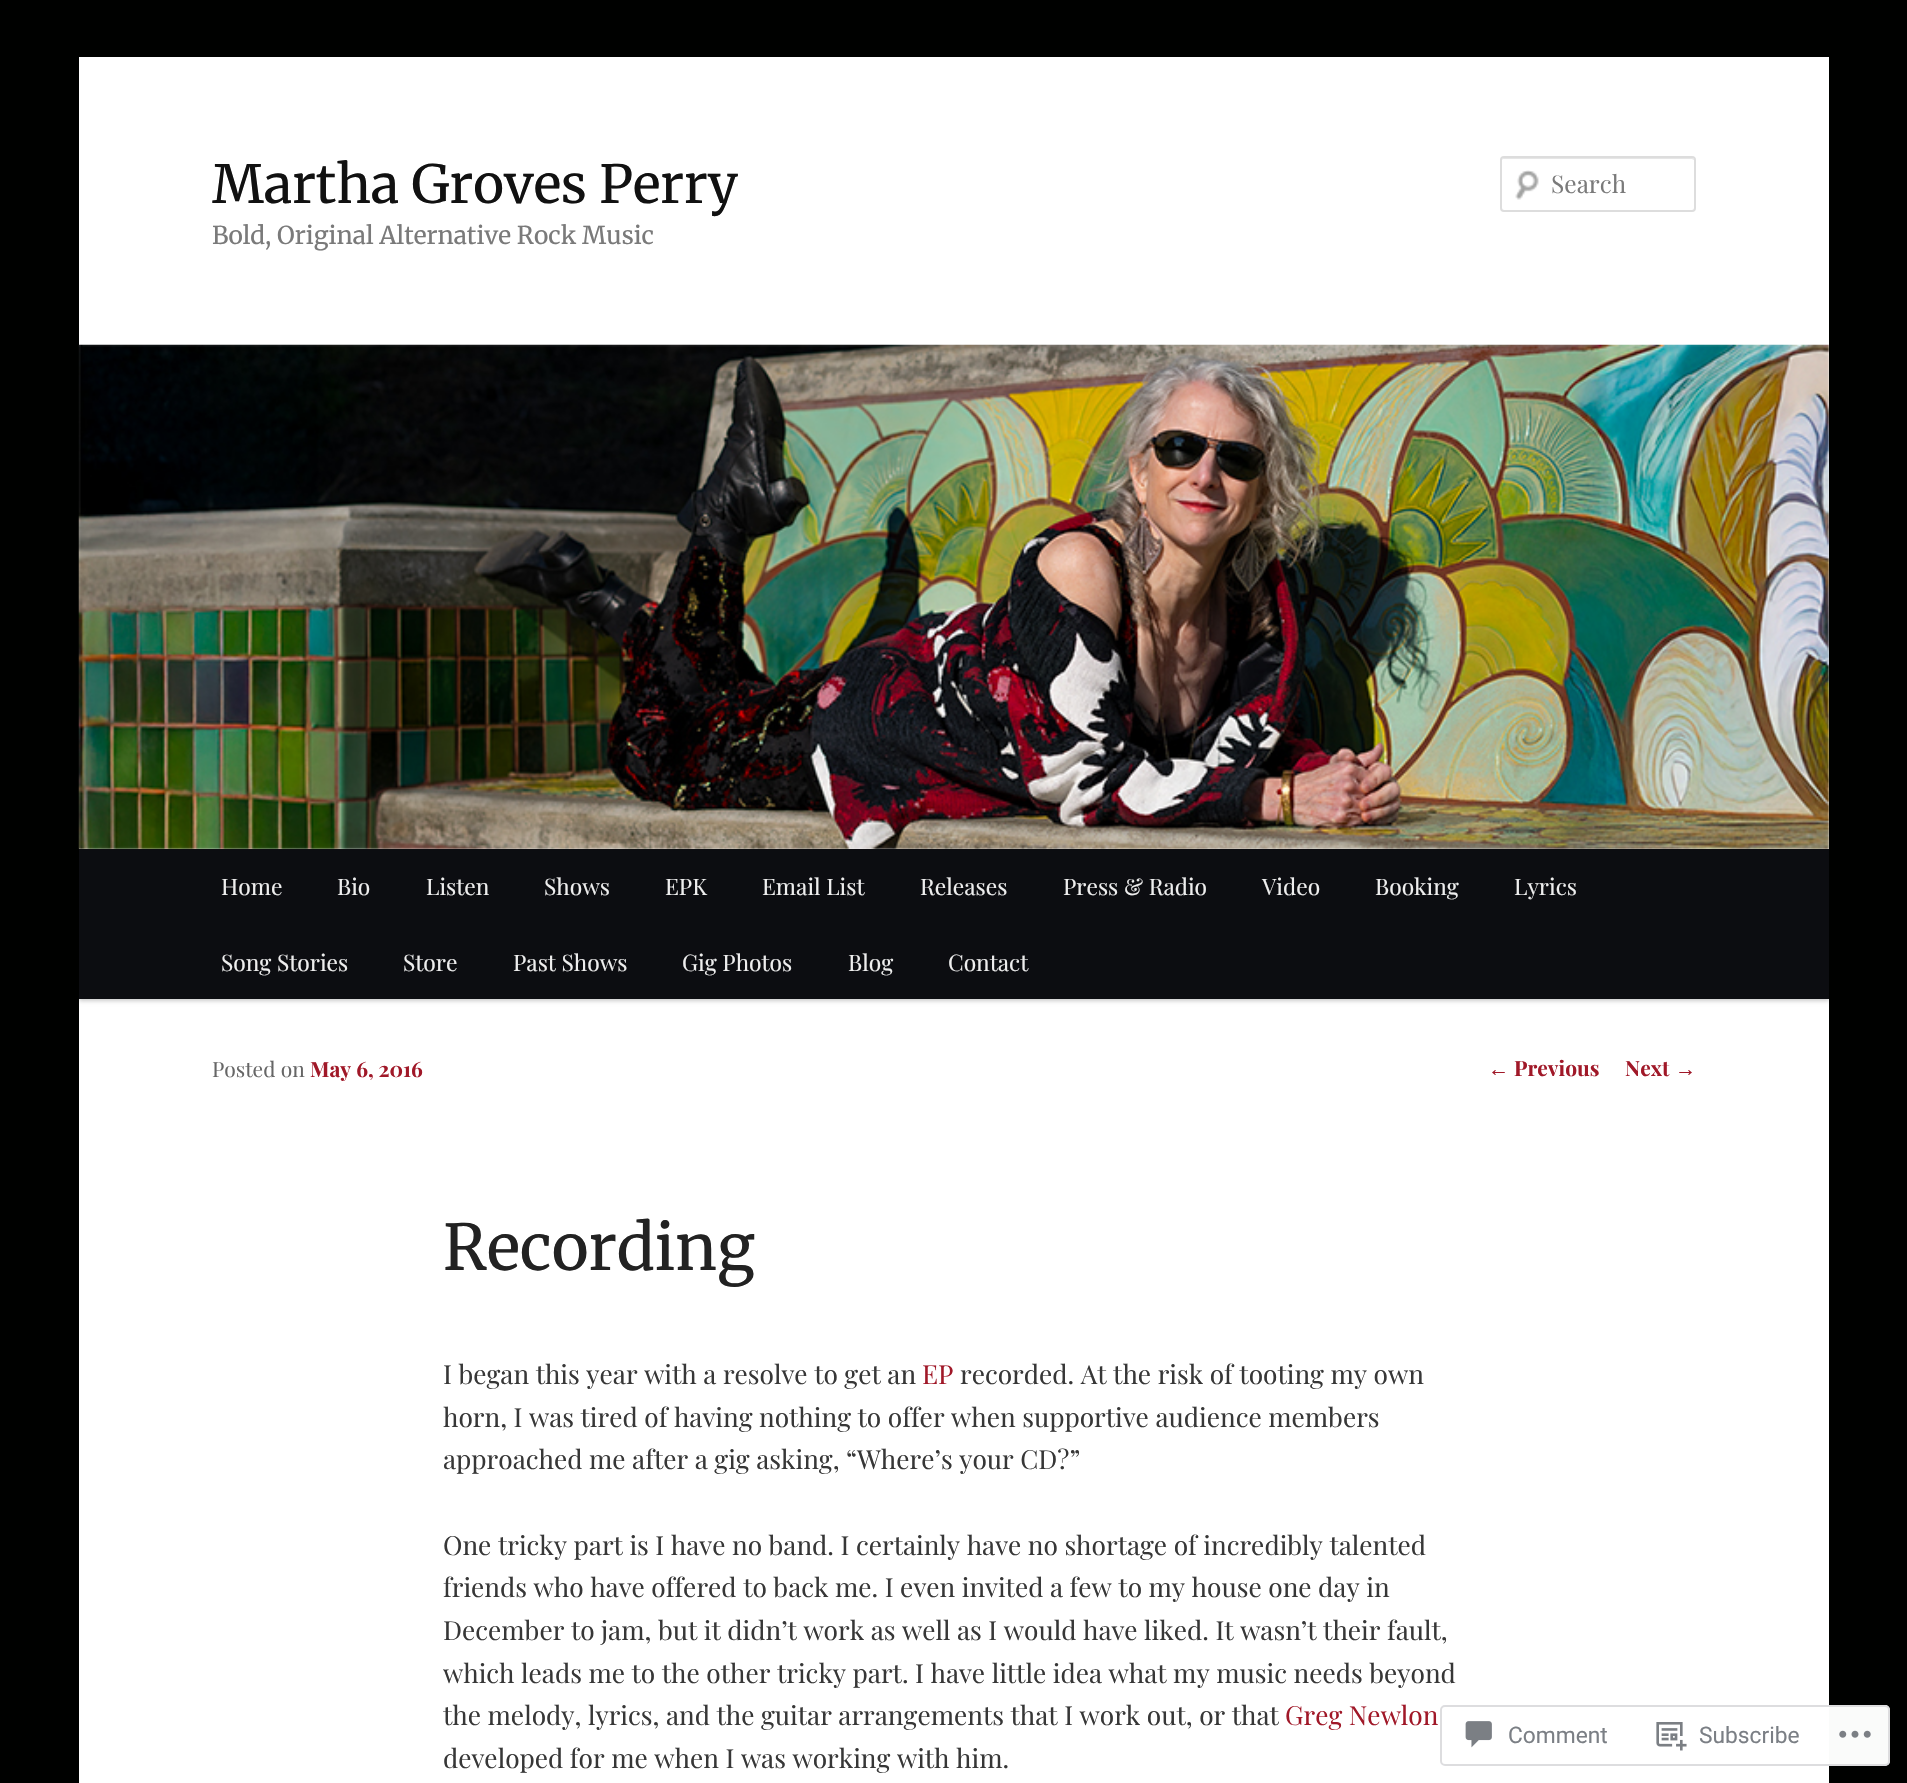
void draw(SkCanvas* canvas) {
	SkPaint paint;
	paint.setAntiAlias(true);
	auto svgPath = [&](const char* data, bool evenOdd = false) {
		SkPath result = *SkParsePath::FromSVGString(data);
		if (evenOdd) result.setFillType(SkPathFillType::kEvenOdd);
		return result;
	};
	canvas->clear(0xff000100);
	paint.setColor(0xffffffff);
	canvas->drawRect(SkRect::MakeXYWH(79, 57, 1750, 1726), paint);
	SkFont f1(fontMgr->matchFamilyStyle("Merriweather", SkFontStyle(300, SkFontStyle::kNormal_Width, SkFontStyle::kUpright_Slant)), 52.5);
	f1.setSubpixel(true);
	paint.setColor(0xff111111);
	canvas->drawString("Martha Groves Perry", 212, 203, f1, paint);
	SkFont f2(fontMgr->matchFamilyStyle("Merriweather", SkFontStyle(300, SkFontStyle::kNormal_Width, SkFontStyle::kUpright_Slant)), 24.5);
	f2.setSubpixel(true);
	paint.setColor(0xff7a7a7a);
	canvas->drawString("Bold, Original Alternative Rock Music", 212, 244, f2, paint);
	canvas->drawImageRect(SkImages::DeferredFromEncodedData(SkData::MakeFromFileName("img1.png")), SkRect::MakeXYWH(1515, 170, 24, 30), SkSamplingOptions());
	paint.setColor(0xffe6e6e6);
	canvas->drawPath(svgPath("M1503 159H1692L1694 160V161V160C1694 159 1693 158 1692 158H1504C1503 158 1502 159 1502 160V161C1502 160 1502 159 1503 159Z"), paint);
	paint.setStroke(true);
	paint.setStrokeWidth(2);
	paint.setColor(0xffdddddd);
	canvas->drawRoundRect(SkRect::MakeXYWH(1501, 157, 194, 54), 3, 3, paint);
	SkFont f3(fontMgr->matchFamilyStyle("Playfair Display", SkFontStyle::Normal()), 24.5);
	f3.setSubpixel(true);
	paint.setStroke(false);
	paint.setColor(0xff7a7a7a);
	canvas->drawString("Search", 1551, 193, f3, paint);
	paint.setColor(0x33000000);
	paint.setMaskFilter(SkMaskFilter::MakeBlur(kNormal_SkBlurStyle, 2));
	canvas->drawRect(SkRect::MakeXYWH(79, 851, 1750, 150), paint);
	paint.setMaskFilter(nullptr);
	canvas->drawImageRect(SkImages::DeferredFromEncodedData(SkData::MakeFromFileName("img2.png")), SkRect::MakeXYWH(78, 344, 1751, 505), SkSamplingOptions());
	paint.setColor(0xff0c0d11);
	canvas->drawRect(SkRect::MakeXYWH(79, 849, 1750, 150), paint);
	SkFont f4(fontMgr->matchFamilyStyle("Playfair Display", SkFontStyle::Normal()), 22.75);
	f4.setSubpixel(true);
	paint.setColor(0xffeeeeee);
	canvas->drawString("Home", 221, 895, f4, paint);
	canvas->drawString("Bio", 337, 895, f4, paint);
	canvas->drawString("Listen", 426, 895, f4, paint);
	canvas->drawString("Shows", 544, 895, f4, paint);
	canvas->drawString("EPK", 665, 895, f4, paint);
	canvas->drawString("Email List", 762, 895, f4, paint);
	canvas->drawString("Releases", 920, 895, f4, paint);
	canvas->drawString("Press & Radio", 1063, 895, f4, paint);
	canvas->drawString("Video", 1262, 895, f4, paint);
	canvas->drawString("Booking", 1375, 895, f4, paint);
	canvas->drawString("Lyrics", 1514, 895, f4, paint);
	canvas->drawString("Song Stories", 221, 971, f4, paint);
	canvas->drawString("Store", 403, 971, f4, paint);
	canvas->drawString("Past Shows", 513, 971, f4, paint);
	canvas->drawString("Gig Photos", 682, 971, f4, paint);
	canvas->drawString("Blog", 848, 971, f4, paint);
	canvas->drawString("Contact", 948, 971, f4, paint);
	SkFont f5(fontMgr->matchFamilyStyle("Playfair Display", SkFontStyle::Normal()), 21);
	f5.setSubpixel(true);
	paint.setColor(0xff666666);
	canvas->drawString("Posted on", 212, 1077, f5, paint);
	SkFont f6(fontMgr->matchFamilyStyle("Playfair Display", SkFontStyle::Bold()), 21);
	f6.setSubpixel(true);
	paint.setColor(0xffa01828);
	canvas->drawString("May 6, 2016", 310, 1077, f6, paint);
	SkFont f7(fontMgr->matchFamilyStyle("Merriweather", SkFontStyle(300, SkFontStyle::kNormal_Width, SkFontStyle::kUpright_Slant)), 63);
	f7.setSubpixel(true);
	paint.setColor(0xff222222);
	canvas->drawString("Recording", 443, 1270, f7, paint);
	SkFont f8(fontMgr->matchFamilyStyle("Playfair Display", SkFontStyle::Normal()), 26.25);
	f8.setSubpixel(true);
	paint.setColor(0xff373737);
	canvas->drawString("I began this year with a resolve to get an", 443, 1384, f8, paint);
	paint.setColor(0xffa01828);
	canvas->drawString("EP", 922, 1384, f8, paint);
	paint.setColor(0xff373737);
	canvas->drawString("recorded. At the risk of tooting my own", 960, 1384, f8, paint);
	canvas->drawString("horn, I was tired of having nothing to offer when supportive audience members", 443, 1427, f8, paint);
	canvas->drawString("approached me after a gig asking, “Where’s your CD?”", 443, 1469, f8, paint);
	canvas->drawString("One tricky part is I have no band. I certainly have no shortage of incredibly talented", 443, 1555, f8, paint);
	canvas->drawString("friends who have offered to back me. I even invited a few to my house one day in", 443, 1597, f8, paint);
	canvas->drawString("December to jam, but it didn’t work as well as I would have liked. It wasn’t their fault,", 443, 1640, f8, paint);
	canvas->drawString("which leads me to the other tricky part. I have little idea what my music needs beyond", 443, 1683, f8, paint);
	canvas->drawString("the melody, lyrics, and the guitar arrangements that I work out, or that", 443, 1725, f8, paint);
	paint.setColor(0xffa01828);
	canvas->drawString("Greg Newlon", 1285, 1725, f8, paint);
	paint.setColor(0xff373737);
	canvas->drawString("developed for me when I was working with him.", 443, 1768, f8, paint);
	SkFont f9(fontMgr->matchFamilyStyle("Liberation Serif", SkFontStyle::Normal()), 21);
	f9.setSubpixel(true);
	paint.setColor(0xffa01828);
	canvas->drawString("←", 1488, 1076, f9, paint);
	canvas->drawString("Previous", 1514, 1076, f6, paint);
	canvas->drawString("Next", 1625, 1076, f6, paint);
	canvas->drawString("→", 1675, 1076, f9, paint);
	paint.setColor(0xfaffffff);
	canvas->drawRoundRect(SkRect::MakeXYWH(1440, 1705, 450, 61), 5, 5, paint);
	paint.setStroke(true);
	paint.setColor(0xfadcdcde);
	canvas->drawRoundRect(SkRect::MakeXYWH(1441, 1706, 448, 59), 4, 4, paint);
	canvas->drawImageRect(SkImages::DeferredFromEncodedData(SkData::MakeFromFileName("img3.png")), SkRect::MakeXYWH(1465, 1721, 27, 27), SkSamplingOptions());
	SkFont f10(fontMgr->matchFamilyStyle("Roboto", SkFontStyle::Normal()), 22.75);
	f10.setSubpixel(true);
	paint.setStroke(false);
	paint.setColor(0xff7b7f85);
	canvas->drawString("Comment", 1508, 1743, f10, paint);
	canvas->drawImageRect(SkImages::DeferredFromEncodedData(SkData::MakeFromFileName("img4.png")), SkRect::MakeXYWH(1656, 1722, 31, 29), SkSamplingOptions());
	canvas->drawString("Subscribe", 1699, 1743, f10, paint);
	canvas->drawImageRect(SkImages::DeferredFromEncodedData(SkData::MakeFromFileName("img5.png")), SkRect::MakeXYWH(1839, 1730, 32, 8), SkSamplingOptions());
}
